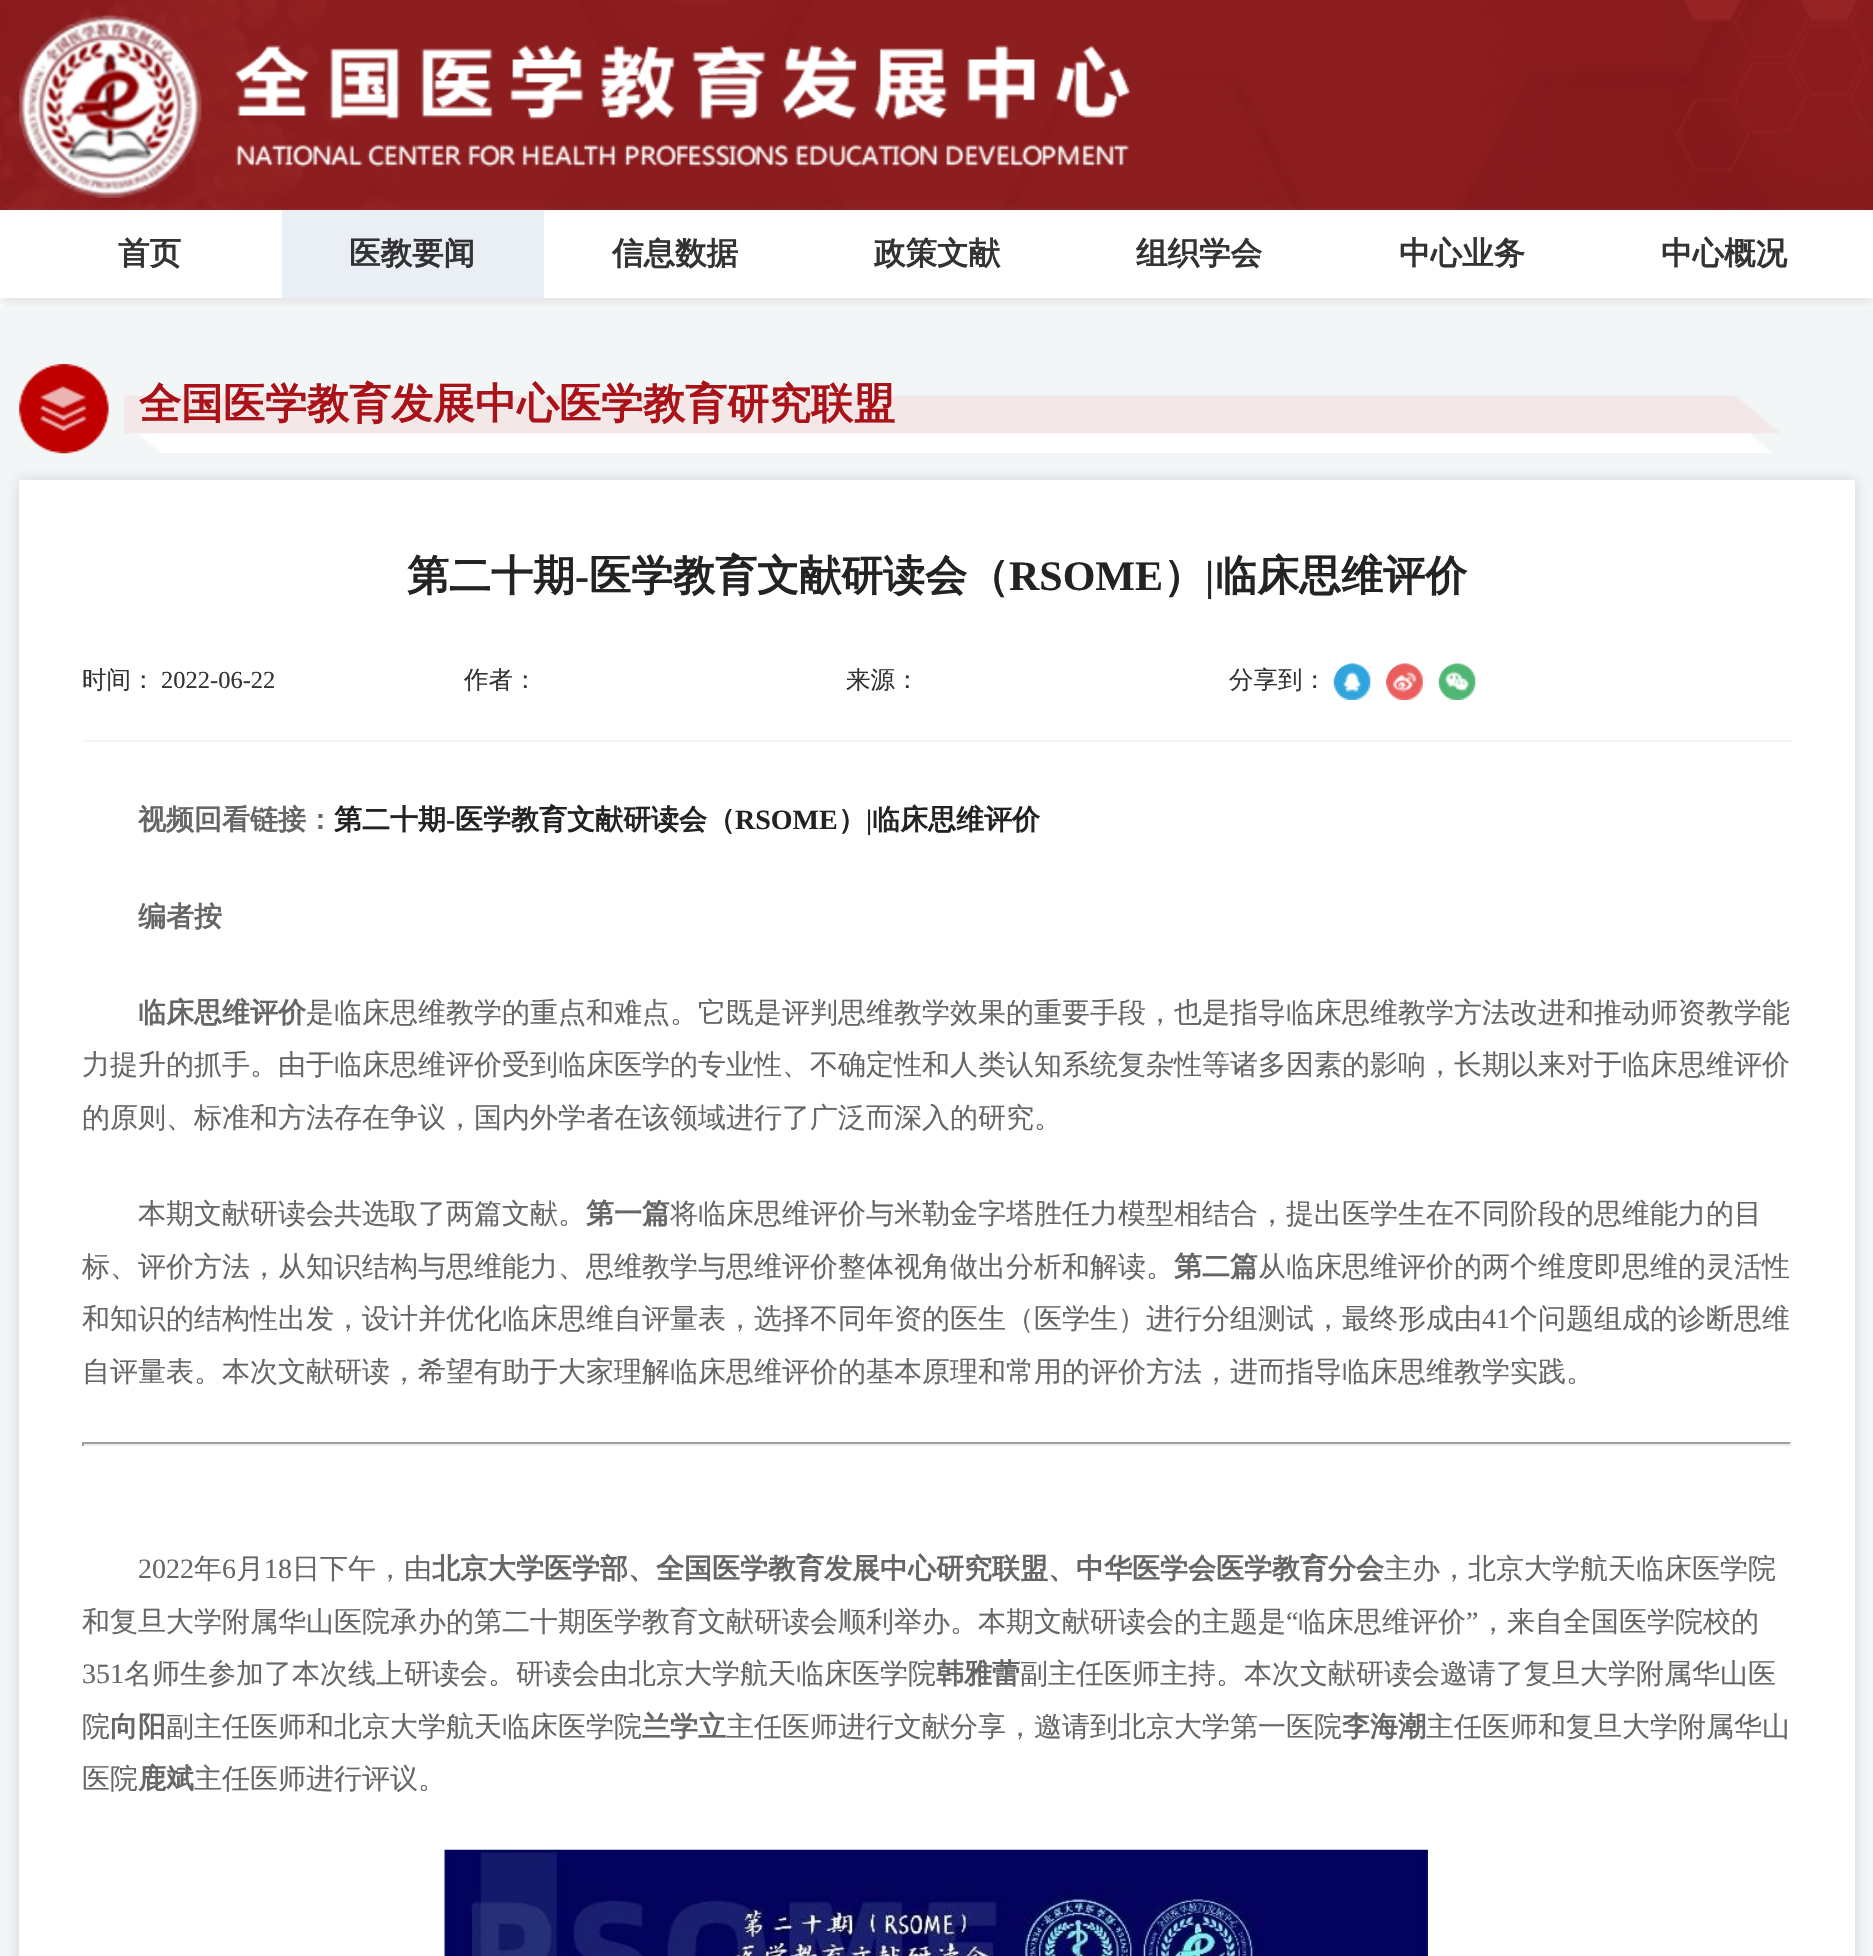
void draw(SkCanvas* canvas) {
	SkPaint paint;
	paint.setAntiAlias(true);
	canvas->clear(0xffffffff);
	canvas->drawImageRect(SkImages::DeferredFromEncodedData(SkData::MakeFromFileName("img1.png")), SkRect::MakeXYWH(0, 0, 1873, 210), SkSamplingOptions());
	canvas->drawImageRect(SkImages::DeferredFromEncodedData(SkData::MakeFromFileName("img2.png")), SkRect::MakeXYWH(19, 14, 1112, 184), SkSamplingOptions());
	paint.setColor(0xffe7e7e7);
	paint.setMaskFilter(SkMaskFilter::MakeBlur(kNormal_SkBlurStyle, 5));
	canvas->drawRect(SkRect::MakeXYWH(0, 219, 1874, 87), paint);
	paint.setMaskFilter(nullptr);
	paint.setColor(0xffffffff);
	canvas->drawRect(SkRect::MakeXYWH(0, 213, 1873, 85), paint);
	SkFont f1(fontMgr->matchFamilyStyle("WenQuanYi Zen Hei", SkFontStyle::Bold()), 31.5);
	f1.setSubpixel(true);
	paint.setColor(0xff333333);
	canvas->drawString("首页", 118, 264, f1, paint);
	paint.setColor(0xffeaeef5);
	canvas->drawRect(SkRect::MakeXYWH(282, 210, 262, 88), paint);
	paint.setColor(0xff333333);
	canvas->drawString("医教要闻", 349, 264, f1, paint);
	canvas->drawString("信息数据", 612, 264, f1, paint);
	canvas->drawString("政策文献", 874, 264, f1, paint);
	canvas->drawString("组织学会", 1136, 264, f1, paint);
	canvas->drawString("中心业务", 1399, 264, f1, paint);
	canvas->drawString("中心概况", 1661, 264, f1, paint);
	paint.setColor(0xfff2f6f6);
	canvas->drawRect(SkRect::MakeXYWH(0, 308, 1873, 1648), paint);
	canvas->drawImageRect(SkImages::DeferredFromEncodedData(SkData::MakeFromFileName("img3.png")), SkRect::MakeXYWH(124, 395, 1656, 58), SkSamplingOptions());
	canvas->drawImageRect(SkImages::DeferredFromEncodedData(SkData::MakeFromFileName("img4.png")), SkRect::MakeXYWH(19, 364, 90, 90), SkSamplingOptions());
	SkFont f2(fontMgr->matchFamilyStyle("WenQuanYi Zen Hei", SkFontStyle::Bold()), 42);
	f2.setSubpixel(true);
	paint.setColor(0xffaa1219);
	canvas->drawString("全国医学教育发展中心医学教育研究联盟", 139, 418, f2, paint);
	paint.setColor(0x548d8d8d);
	paint.setMaskFilter(SkMaskFilter::MakeBlur(kNormal_SkBlurStyle, 6));
	canvas->drawRect(SkRect::MakeXYWH(19, 480, 1836, 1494), paint);
	paint.setMaskFilter(nullptr);
	paint.setColor(0xffffffff);
	canvas->drawRect(SkRect::MakeXYWH(19, 480, 1836, 1476), paint);
	paint.setColor(0xff232323);
	canvas->drawString("第二十期", 407, 590, f2, paint);
	SkFont f3(fontMgr->matchFamilyStyle("Liberation Serif", SkFontStyle::Bold()), 42);
	f3.setSubpixel(true);
	canvas->drawString("-", 575, 590, f3, paint);
	canvas->drawString("医学教育文献研读会（", 589, 590, f2, paint);
	canvas->drawString("RSOME", 1009, 590, f3, paint);
	canvas->drawString("）", 1163, 590, f2, paint);
	canvas->drawString("|", 1205, 590, f3, paint);
	canvas->drawString("临床思维评价", 1215, 590, f2, paint);
	paint.setColor(0xfff2f6f6);
	canvas->drawRect(SkRect::MakeXYWH(82, 740, 1710, 2), paint);
	SkFont f4(fontMgr->matchFamilyStyle("WenQuanYi Zen Hei", SkFontStyle(500, SkFontStyle::kNormal_Width, SkFontStyle::kUpright_Slant)), 24.5);
	f4.setSubpixel(true);
	paint.setColor(0xff333333);
	canvas->drawString("时间：", 82, 688, f4, paint);
	SkFont f5(fontMgr->matchFamilyStyle("Liberation Serif", SkFontStyle::Normal()), 24.5);
	f5.setSubpixel(true);
	canvas->drawString("2022-06-22", 161, 688, f5, paint);
	canvas->drawString("作者：", 464, 688, f4, paint);
	canvas->drawString("来源：", 846, 688, f4, paint);
	canvas->drawString("分享到：", 1229, 688, f4, paint);
	canvas->drawImageRect(SkImages::DeferredFromEncodedData(SkData::MakeFromFileName("img5.png")), SkRect::MakeXYWH(1333, 663, 38, 37), SkSamplingOptions());
	canvas->drawImageRect(SkImages::DeferredFromEncodedData(SkData::MakeFromFileName("img6.png")), SkRect::MakeXYWH(1386, 663, 37, 37), SkSamplingOptions());
	canvas->drawImageRect(SkImages::DeferredFromEncodedData(SkData::MakeFromFileName("img7.png")), SkRect::MakeXYWH(1438, 663, 38, 37), SkSamplingOptions());
	SkFont f6(fontMgr->matchFamilyStyle("WenQuanYi Zen Hei", SkFontStyle::Bold()), 28);
	f6.setSubpixel(true);
	paint.setColor(0xff666666);
	canvas->drawString("视频回看链接：", 138, 829, f6, paint);
	paint.setColor(0xff232323);
	canvas->drawString("第二十期", 334, 829, f6, paint);
	SkFont f7(fontMgr->matchFamilyStyle("Liberation Serif", SkFontStyle::Bold()), 28);
	f7.setSubpixel(true);
	canvas->drawString("-", 446, 829, f7, paint);
	canvas->drawString("医学教育文献研读会（", 455, 829, f6, paint);
	canvas->drawString("RSOME", 735, 829, f7, paint);
	canvas->drawString("）", 838, 829, f6, paint);
	canvas->drawString("|", 866, 829, f7, paint);
	canvas->drawString("临床思维评价", 872, 829, f6, paint);
	paint.setColor(0xff666666);
	canvas->drawString("编者按", 138, 926, f6, paint);
	canvas->drawString("临床思维评价", 138, 1022, f6, paint);
	SkFont f8(fontMgr->matchFamilyStyle("WenQuanYi Zen Hei", SkFontStyle(500, SkFontStyle::kNormal_Width, SkFontStyle::kUpright_Slant)), 28);
	f8.setSubpixel(true);
	canvas->drawString("是临床思维教学的重点和难点。它既是评判思维教学效果的重要手段，也是指导临床思维教学方法改进和推动师资教学能", 306, 1022, f8, paint);
	canvas->drawString("力提升的抓手。由于临床思维评价受到临床医学的专业性、不确定性和人类认知系统复杂性等诸多因素的影响，长期以来对于临床思维评价", 82, 1074, f8, paint);
	canvas->drawString("的原则、标准和方法存在争议，国内外学者在该领域进行了广泛而深入的研究。", 82, 1127, f8, paint);
	canvas->drawString("本期文献研读会共选取了两篇文献。", 138, 1223, f8, paint);
	canvas->drawString("第一篇", 586, 1223, f6, paint);
	canvas->drawString("将临床思维评价与米勒金字塔胜任力模型相结合，提出医学生在不同阶段的思维能力的目", 670, 1223, f8, paint);
	canvas->drawString("标、评价方法，从知识结构与思维能力、思维教学与思维评价整体视角做出分析和解读。", 82, 1276, f8, paint);
	canvas->drawString("第二篇", 1174, 1276, f6, paint);
	canvas->drawString("从临床思维评价的两个维度即思维的灵活性", 1258, 1276, f8, paint);
	canvas->drawString("和知识的结构性出发，设计并优化临床思维自评量表，选择不同年资的医生（医学生）进行分组测试，最终形成由", 82, 1328, f8, paint);
	SkFont f9(fontMgr->matchFamilyStyle("Liberation Serif", SkFontStyle::Normal()), 28);
	f9.setSubpixel(true);
	canvas->drawString("41", 1482, 1328, f9, paint);
	canvas->drawString("个问题组成的诊断思维", 1510, 1328, f8, paint);
	canvas->drawString("自评量表。本次文献研读，希望有助于大家理解临床思维评价的基本原理和常用的评价方法，进而指导临床思维教学实践。", 82, 1381, f8, paint);
	paint.setColor(0xff9f9f9f);
	canvas->drawRect(SkRect::MakeXYWH(82, 1442, 1710, 2), paint);
	paint.setColor(0xffeeeeee);
	canvas->drawRect(SkRect::MakeXYWH(1790, 1442, 2, 4), paint);
	canvas->drawRect(SkRect::MakeXYWH(82, 1444, 1710, 2), paint);
	paint.setColor(0xff9f9f9f);
	canvas->drawRect(SkRect::MakeXYWH(82, 1442, 2, 4), paint);
	paint.setColor(0xff666666);
	canvas->drawString("2022", 138, 1578, f9, paint);
	canvas->drawString("年", 194, 1578, f8, paint);
	canvas->drawString("6", 222, 1578, f9, paint);
	canvas->drawString("月", 236, 1578, f8, paint);
	canvas->drawString("18", 264, 1578, f9, paint);
	canvas->drawString("日下午，由", 292, 1578, f8, paint);
	canvas->drawString("北京大学医学部、全国医学教育发展中心研究联盟、中华医学会医学教育分会", 432, 1578, f6, paint);
	canvas->drawString("主办，北京大学航天临床医学院", 1384, 1578, f8, paint);
	canvas->drawString("和复旦大学附属华山医院承办的第二十期医学教育文献研读会顺利举办。本期文献研读会的主题是", 82, 1631, f8, paint);
	canvas->drawString("“", 1286, 1631, f9, paint);
	canvas->drawString("临床思维评价", 1298, 1631, f8, paint);
	canvas->drawString("”", 1466, 1631, f9, paint);
	canvas->drawString("，来自全国医学院校的", 1479, 1631, f8, paint);
	canvas->drawString("351", 82, 1683, f9, paint);
	canvas->drawString("名师生参加了本次线上研读会。研读会由北京大学航天临床医学院", 124, 1683, f8, paint);
	canvas->drawString("韩雅蕾", 936, 1683, f6, paint);
	canvas->drawString("副主任医师主持。本次文献研读会邀请了复旦大学附属华山医", 1020, 1683, f8, paint);
	canvas->drawString("院", 82, 1736, f8, paint);
	canvas->drawString("向阳", 110, 1736, f6, paint);
	canvas->drawString("副主任医师和北京大学航天临床医学院", 166, 1736, f8, paint);
	canvas->drawString("兰学立", 642, 1736, f6, paint);
	canvas->drawString("主任医师进行文献分享，邀请到北京大学第一医院", 726, 1736, f8, paint);
	canvas->drawString("李海潮", 1342, 1736, f6, paint);
	canvas->drawString("主任医师和复旦大学附属华山", 1426, 1736, f8, paint);
	canvas->drawString("医院", 82, 1788, f8, paint);
	canvas->drawString("鹿斌", 138, 1788, f6, paint);
	canvas->drawString("主任医师进行评议。", 194, 1788, f8, paint);
	canvas->drawImageRect(SkImages::DeferredFromEncodedData(SkData::MakeFromFileName("img8.png")), SkRect::MakeXYWH(444, 1849, 984, 107), SkSamplingOptions());
}
